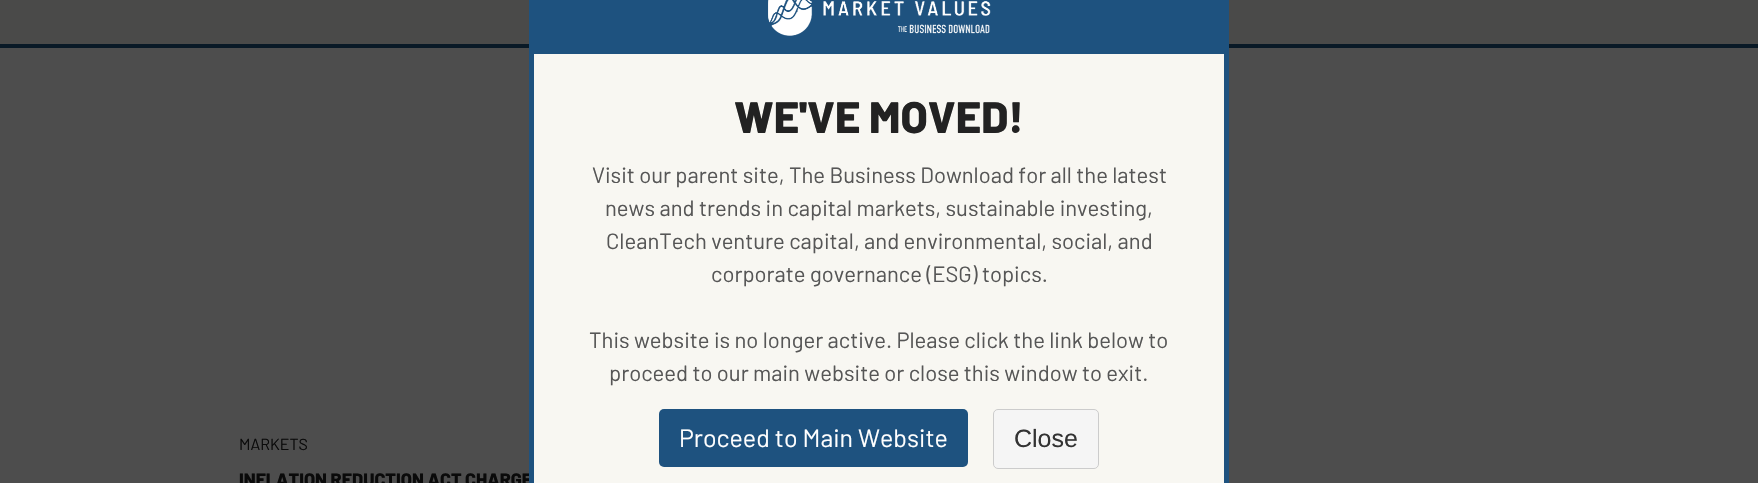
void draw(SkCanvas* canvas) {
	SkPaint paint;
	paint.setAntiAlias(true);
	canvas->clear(0xff4d4d4d);
	paint.setColor(0xfff8f7f2);
	canvas->drawRect(SkRect::MakeXYWH(534, 54, 690, 429), paint);
	paint.setColor(0xff4a4a49);
	canvas->drawRect(SkRect::MakeXYWH(0, 0, 1758, 44), paint);
	paint.setColor(0xff091926);
	canvas->drawRect(SkRect::MakeXYWH(0, 44, 1758, 4), paint);
	SkFont f1(fontMgr->matchFamilyStyle("Barlow", SkFontStyle(800, SkFontStyle::kNormal_Width, SkFontStyle::kUpright_Slant)), 18);
	f1.setSubpixel(true);
	paint.setColor(0xff0a0a0a);
	canvas->drawString("INFLATION REDUCTION ACT CHARGE", 239, 486, f1, paint);
	paint.setStroke(true);
	paint.setStrokeWidth(5);
	paint.setColor(0xff1e527f);
	canvas->drawRect(SkRect::MakeXYWH(531.5, -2.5, 695, 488), paint);
	paint.setStroke(false);
	canvas->drawRect(SkRect::MakeXYWH(534, 0, 690, 54), paint);
	canvas->drawImageRect(SkImages::DeferredFromEncodedData(SkData::MakeFromFileName("img1.png")), SkRect::MakeXYWH(768, 0, 223, 36), SkSamplingOptions());
	SkFont f2(fontMgr->matchFamilyStyle("Barlow", SkFontStyle(800, SkFontStyle::kNormal_Width, SkFontStyle::kUpright_Slant)), 44);
	f2.setSubpixel(true);
	paint.setColor(0xff222222);
	canvas->drawString("WE'VE MOVED!", 734, 133, f2, paint);
	SkFont f3(fontMgr->matchFamilyStyle("Barlow", SkFontStyle::Normal()), 22);
	f3.setSubpixel(true);
	paint.setColor(0xff565656);
	canvas->drawString("Visit our parent site, The Business Download for all the latest", 592, 183, f3, paint);
	canvas->drawString("news and trends in capital markets, sustainable investing,", 605, 216, f3, paint);
	canvas->drawString("CleanTech venture capital, and environmental, social, and", 606, 249, f3, paint);
	canvas->drawString("corporate governance (ESG) topics.", 711, 282, f3, paint);
	canvas->drawString("This website is no longer active. Please click the link below to", 589, 348, f3, paint);
	canvas->drawString("proceed to our main website or close this window to exit.", 609, 381, f3, paint);
	paint.setColor(0xff1e527f);
	canvas->drawRoundRect(SkRect::MakeXYWH(659, 409, 309, 58), 5, 5, paint);
	SkFont f4(fontMgr->matchFamilyStyle("Barlow", SkFontStyle::Normal()), 25);
	f4.setSubpixel(true);
	paint.setColor(0xffffffff);
	canvas->drawString("Proceed to Main Website", 679, 447, f4, paint);
	paint.setColor(0xfff5f5f5);
	canvas->drawRoundRect(SkRect::MakeXYWH(993.5, 409.5, 105, 59), 4.5, 4.5, paint);
	paint.setStroke(true);
	paint.setStrokeWidth(1);
	paint.setColor(0xffcccccc);
	canvas->drawRoundRect(SkRect::MakeXYWH(993.5, 409.5, 105, 59), 4.5, 4.5, paint);
	SkFont f5(fontMgr->matchFamilyStyle("Liberation Sans", SkFontStyle::Normal()), 25);
	f5.setSubpixel(true);
	paint.setStroke(false);
	paint.setColor(0xff333333);
	canvas->drawString("Close", 1014, 447, f5, paint);
	SkFont f6(fontMgr->matchFamilyStyle("Barlow", SkFontStyle::Normal()), 16);
	f6.setSubpixel(true);
	paint.setColor(0xff0a0a0a);
	canvas->drawString("MARKETS", 239, 450, f6, paint);
}
